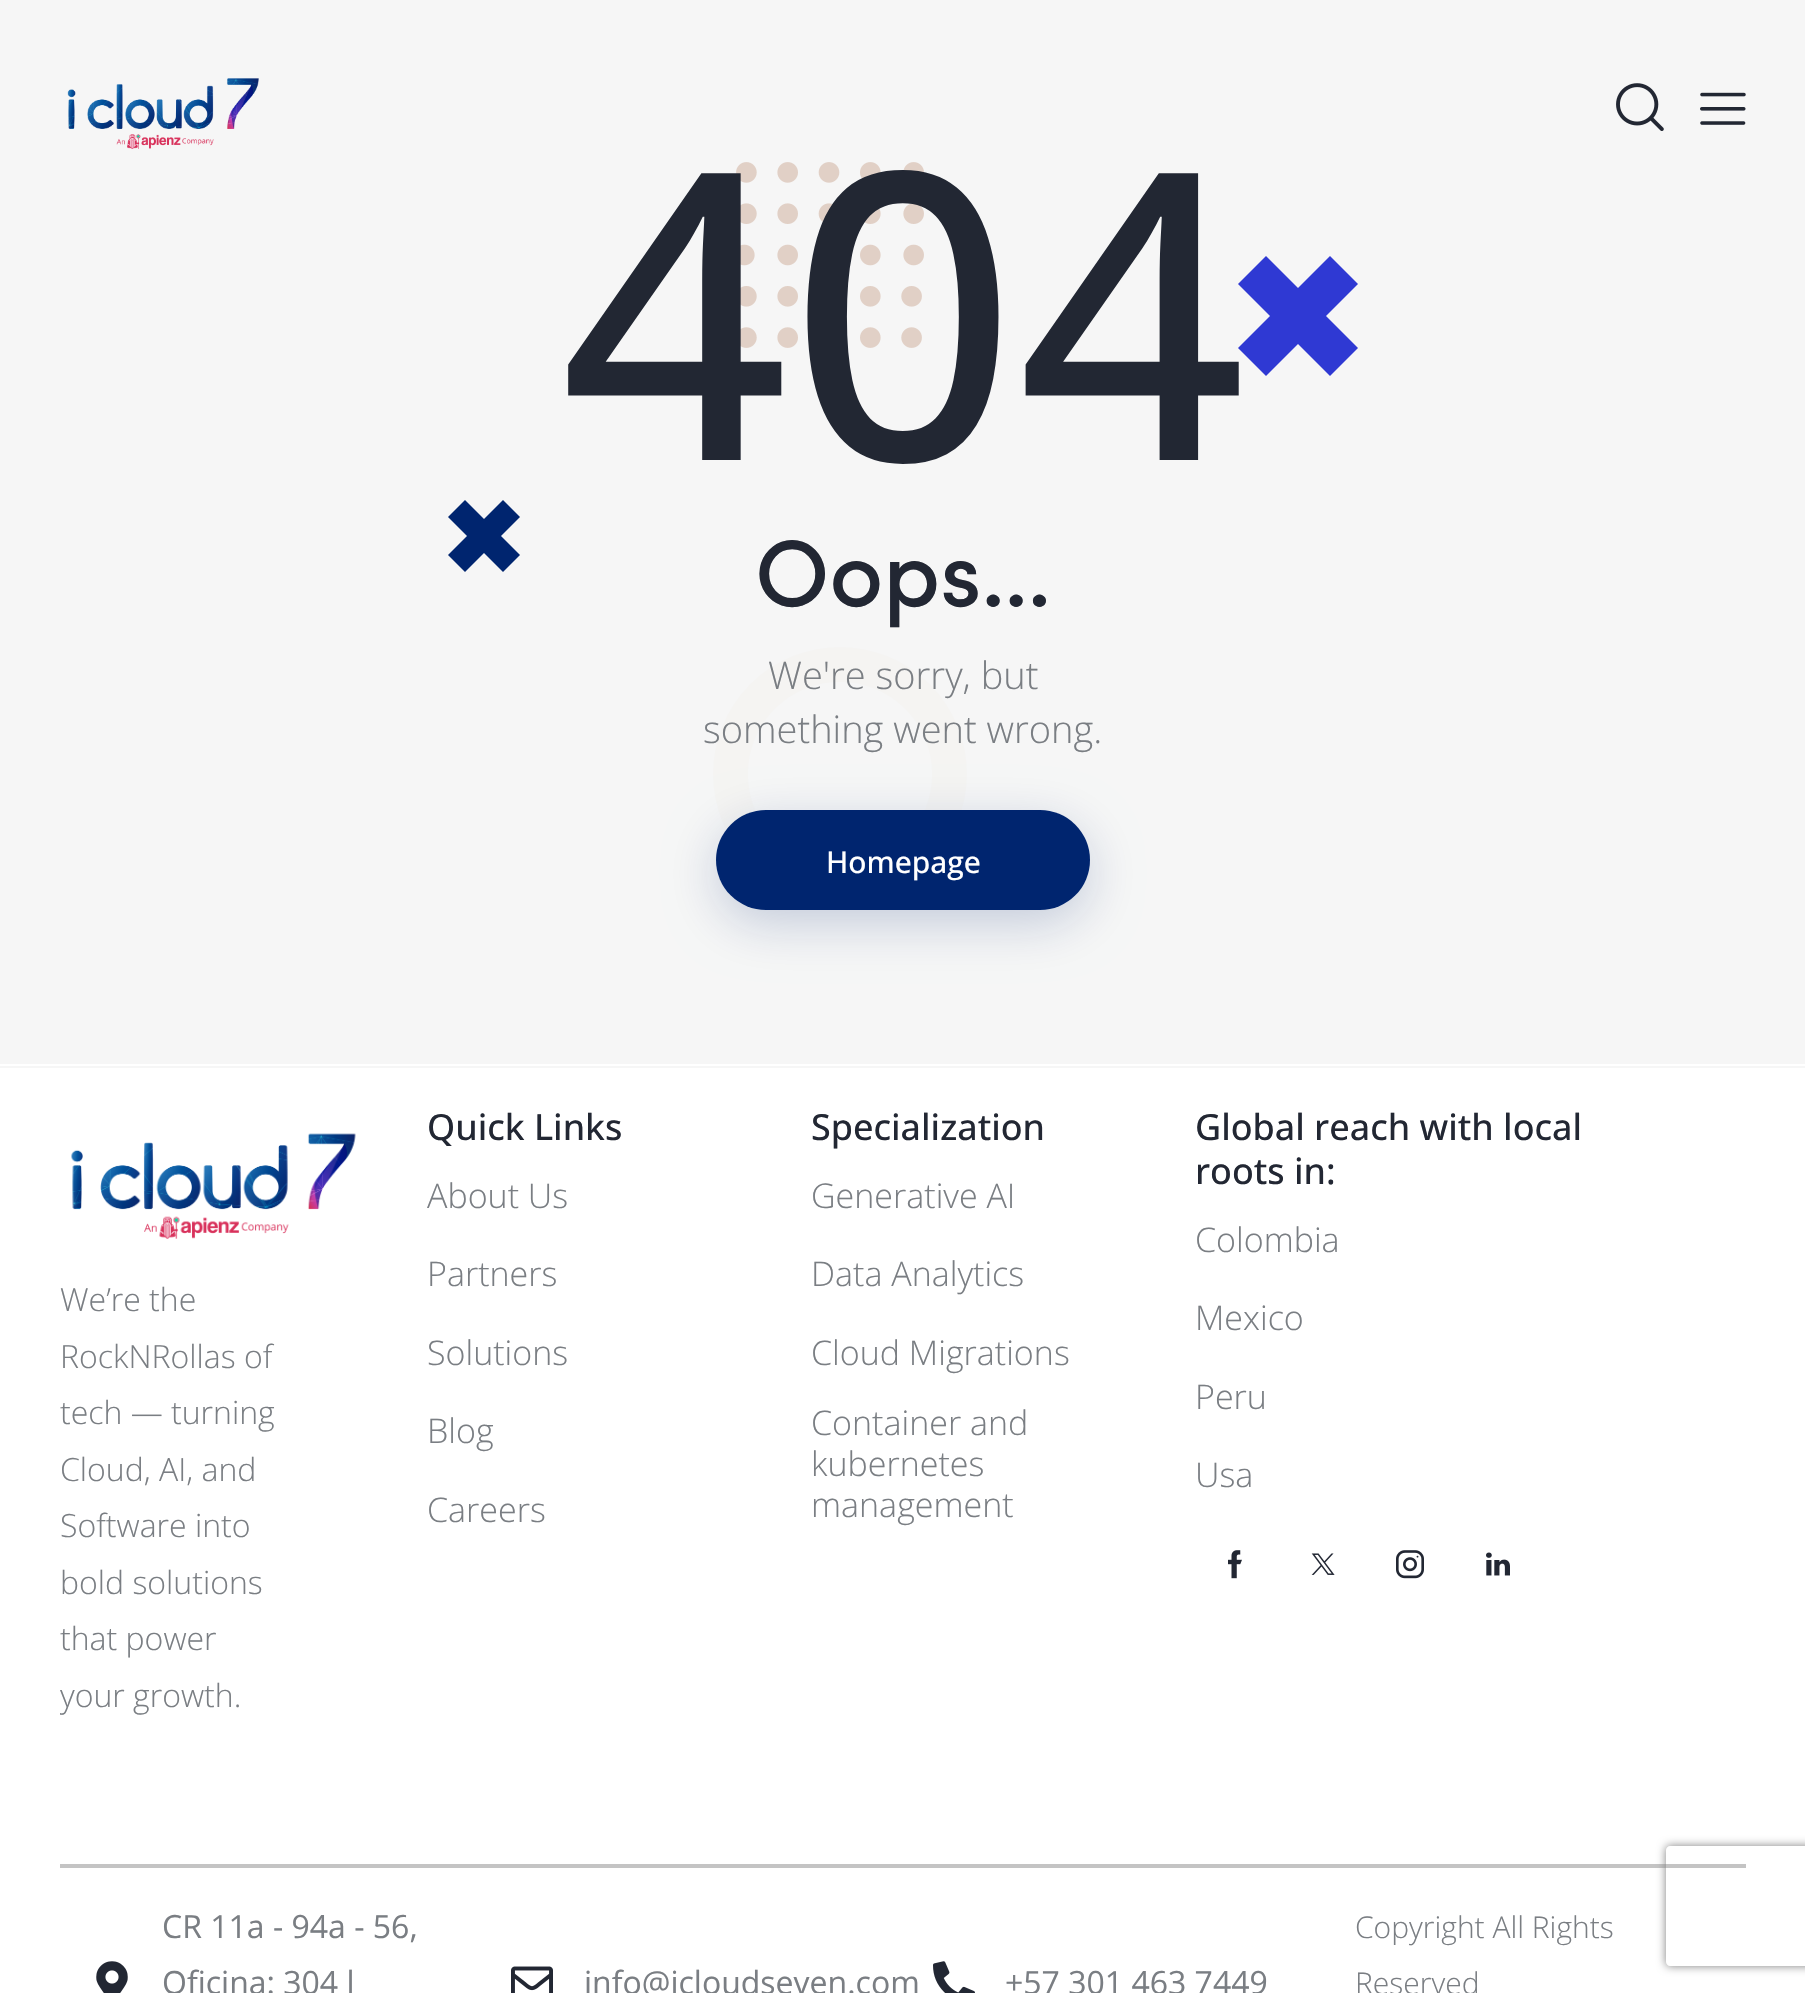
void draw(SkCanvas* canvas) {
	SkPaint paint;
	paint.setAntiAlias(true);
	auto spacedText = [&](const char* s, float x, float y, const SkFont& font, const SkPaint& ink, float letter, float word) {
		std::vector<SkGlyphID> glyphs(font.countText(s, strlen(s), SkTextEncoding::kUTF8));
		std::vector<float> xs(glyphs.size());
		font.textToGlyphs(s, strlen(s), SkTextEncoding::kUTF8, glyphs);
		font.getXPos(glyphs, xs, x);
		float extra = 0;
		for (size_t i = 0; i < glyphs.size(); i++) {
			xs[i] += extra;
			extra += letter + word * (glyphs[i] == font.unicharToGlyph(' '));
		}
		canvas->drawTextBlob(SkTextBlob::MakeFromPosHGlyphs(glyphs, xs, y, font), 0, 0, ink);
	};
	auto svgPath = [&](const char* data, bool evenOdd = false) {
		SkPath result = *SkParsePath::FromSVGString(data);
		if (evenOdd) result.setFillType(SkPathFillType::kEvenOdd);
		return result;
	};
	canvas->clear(0xfff6f6f6);
	canvas->drawImageRect(SkImages::DeferredFromEncodedData(SkData::MakeFromFileName("img1.png")), SkRect::MakeXYWH(67, 78, 192, 71), SkSamplingOptions());
	canvas->drawImageRect(SkImages::DeferredFromEncodedData(SkData::MakeFromFileName("img2.png")), SkRect::MakeXYWH(1616, 83, 48, 48), SkSamplingOptions());
	canvas->drawImageRect(SkImages::DeferredFromEncodedData(SkData::MakeFromFileName("img3.png")), SkRect::MakeXYWH(1700, 92, 46, 33), SkSamplingOptions());
	canvas->drawImageRect(SkImages::DeferredFromEncodedData(SkData::MakeFromFileName("img4.png")), SkRect::MakeXYWH(734, 162, 190, 186), SkSamplingOptions());
	paint.setColor(0xff2f39d3);
	canvas->drawPath(svgPath("M1238 348L1270 316L1238 284L1266 256L1298 288L1330 256L1358 284L1326 316L1358 348L1330 376L1298 344L1266 376Z"), paint);
	paint.setColor(0xff00256f);
	canvas->drawPath(svgPath("M448 555L467 536L448 517L465 500L484 519L503 500L520 517L501 536L520 555L503 572L484 553L465 572Z"), paint);
	paint.setStroke(true);
	paint.setStrokeWidth(34.6);
	paint.setColor(0xfff5f4f2);
	canvas->drawCircle(840, 774, 109.5, paint);
	SkFont f1(fontMgr->matchFamilyStyle("Open Sans", SkFontStyle(500, SkFontStyle::kNormal_Width, SkFontStyle::kUpright_Slant)), 400);
	f1.setSubpixel(true);
	paint.setStroke(false);
	paint.setColor(0xff222733);
	canvas->drawString("404", 560, 460, f1, paint);
	SkFont f2(fontMgr->matchFamilyStyle("Sofia", SkFontStyle(500, SkFontStyle::kNormal_Width, SkFontStyle::kUpright_Slant)), 94);
	f2.setSubpixel(true);
	spacedText("Oops...", 755, 606, f2, paint, -0.25, 0);
	SkFont f3(fontMgr->matchFamilyStyle("Open Sans", SkFontStyle(300, SkFontStyle::kNormal_Width, SkFontStyle::kUpright_Slant)), 38);
	f3.setSubpixel(true);
	paint.setColor(0xff7a7e83);
	canvas->drawString("We're sorry, but", 768, 689, f3, paint);
	canvas->drawString("something went wrong.", 703, 743, f3, paint);
	paint.setColor(0x3300256f);
	paint.setMaskFilter(SkMaskFilter::MakeBlur(kNormal_SkBlurStyle, 25));
	canvas->drawRoundRect(SkRect::MakeXYWH(716, 824, 374, 100), 50, 50, paint);
	paint.setMaskFilter(nullptr);
	paint.setColor(0xff00256f);
	canvas->drawRoundRect(SkRect::MakeXYWH(716, 810, 374, 100), 50, 50, paint);
	SkFont f4(fontMgr->matchFamilyStyle("Open Sans", SkFontStyle(500, SkFontStyle::kNormal_Width, SkFontStyle::kUpright_Slant)), 30);
	f4.setSubpixel(true);
	paint.setColor(0xffffffff);
	canvas->drawString("Homepage", 826, 873, f4, paint);
	canvas->drawRect(SkRect::MakeXYWH(0, 1064, 1805, 2), paint);
	canvas->drawRect(SkRect::MakeXYWH(0, 1068, 1805, 925), paint);
	canvas->drawImageRect(SkImages::DeferredFromEncodedData(SkData::MakeFromFileName("img5.png")), SkRect::MakeXYWH(71, 1133, 285, 106), SkSamplingOptions());
	SkFont f5(fontMgr->matchFamilyStyle("Open Sans", SkFontStyle(300, SkFontStyle::kNormal_Width, SkFontStyle::kUpright_Slant)), 32);
	f5.setSubpixel(true);
	paint.setColor(0xff7a7e83);
	canvas->drawString("We’re the", 60, 1311, f5, paint);
	canvas->drawString("RockNRollas of", 60, 1368, f5, paint);
	canvas->drawString("tech — turning", 60, 1424, f5, paint);
	canvas->drawString("Cloud, AI, and", 60, 1481, f5, paint);
	canvas->drawString("Software into", 60, 1537, f5, paint);
	canvas->drawString("bold solutions", 60, 1594, f5, paint);
	canvas->drawString("that power", 60, 1650, f5, paint);
	canvas->drawString("your growth.", 60, 1707, f5, paint);
	SkFont f6(fontMgr->matchFamilyStyle("Open Sans", SkFontStyle(500, SkFontStyle::kNormal_Width, SkFontStyle::kUpright_Slant)), 36);
	f6.setSubpixel(true);
	paint.setColor(0xff222733);
	canvas->drawString("Quick Links", 427, 1140, f6, paint);
	SkFont f7(fontMgr->matchFamilyStyle("Open Sans", SkFontStyle(300, SkFontStyle::kNormal_Width, SkFontStyle::kUpright_Slant)), 34);
	f7.setSubpixel(true);
	paint.setColor(0xff7a7e83);
	canvas->drawString("About Us", 427, 1208, f7, paint);
	canvas->drawString("Partners", 427, 1286, f7, paint);
	canvas->drawString("Solutions", 427, 1365, f7, paint);
	canvas->drawString("Blog", 427, 1443, f7, paint);
	canvas->drawString("Careers", 427, 1522, f7, paint);
	paint.setColor(0xff222733);
	canvas->drawString("Specialization", 811, 1140, f6, paint);
	paint.setColor(0xff7a7e83);
	canvas->drawString("Generative AI", 811, 1208, f7, paint);
	canvas->drawString("Data Analytics", 811, 1286, f7, paint);
	canvas->drawString("Cloud Migrations", 811, 1365, f7, paint);
	canvas->drawString("Container and", 811, 1435, f7, paint);
	canvas->drawString("kubernetes", 811, 1476, f7, paint);
	canvas->drawString("management", 811, 1517, f7, paint);
	paint.setColor(0xff222733);
	canvas->drawString("Global reach with local", 1195, 1140, f6, paint);
	canvas->drawString("roots in:", 1195, 1184, f6, paint);
	paint.setColor(0xff7a7e83);
	canvas->drawString("Colombia", 1195, 1252, f7, paint);
	canvas->drawString("Mexico", 1195, 1330, f7, paint);
	canvas->drawString("Peru", 1195, 1409, f7, paint);
	canvas->drawString("Usa", 1195, 1487, f7, paint);
	canvas->drawImageRect(SkImages::DeferredFromEncodedData(SkData::MakeFromFileName("img6.png")), SkRect::MakeXYWH(1228, 1550, 14, 29), SkSamplingOptions());
	canvas->drawImageRect(SkImages::DeferredFromEncodedData(SkData::MakeFromFileName("img7.png")), SkRect::MakeXYWH(1311, 1553, 24, 22), SkSamplingOptions());
	canvas->drawImageRect(SkImages::DeferredFromEncodedData(SkData::MakeFromFileName("img8.png")), SkRect::MakeXYWH(1396, 1550, 28, 29), SkSamplingOptions());
	canvas->drawImageRect(SkImages::DeferredFromEncodedData(SkData::MakeFromFileName("img9.png")), SkRect::MakeXYWH(1486, 1552, 24, 24), SkSamplingOptions());
	paint.setColor(0xffc4c4c4);
	canvas->drawRect(SkRect::MakeXYWH(60, 1864, 1686, 4), paint);
	canvas->drawImageRect(SkImages::DeferredFromEncodedData(SkData::MakeFromFileName("img10.png")), SkRect::MakeXYWH(96, 1961, 32, 32), SkSamplingOptions());
	SkFont f8(fontMgr->matchFamilyStyle("Open Sans", SkFontStyle::Normal()), 32);
	f8.setSubpixel(true);
	paint.setColor(0xff7a7e83);
	canvas->drawString("CR 11a - 94a - 56,", 162, 1938, f8, paint);
	canvas->drawString("Oficina: 304 l", 162, 1994, f8, paint);
	canvas->drawImageRect(SkImages::DeferredFromEncodedData(SkData::MakeFromFileName("img11.png")), SkRect::MakeXYWH(511, 1966, 42, 27), SkSamplingOptions());
	canvas->drawString("info@icloudseven.com", 584, 1994, f8, paint);
	canvas->drawImageRect(SkImages::DeferredFromEncodedData(SkData::MakeFromFileName("img12.png")), SkRect::MakeXYWH(933, 1961, 42, 32), SkSamplingOptions());
	canvas->drawString("+57 301 463 7449", 1005, 1994, f8, paint);
	SkFont f9(fontMgr->matchFamilyStyle("Open Sans", SkFontStyle(300, SkFontStyle::kNormal_Width, SkFontStyle::kUpright_Slant)), 30);
	f9.setSubpixel(true);
	canvas->drawString("Copyright All Rights", 1355, 1938, f9, paint);
	canvas->drawString("Reserved", 1355, 1994, f9, paint);
	canvas->save();
	canvas->clipPath(svgPath("M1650 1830H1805V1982H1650ZM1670 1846H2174C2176 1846 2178 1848 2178 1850V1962C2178 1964 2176 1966 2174 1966H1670C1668 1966 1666 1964 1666 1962V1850C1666 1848 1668 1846 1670 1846Z", true), true);
	paint.setColor(0xff808080);
	paint.setMaskFilter(SkMaskFilter::MakeBlur(kNormal_SkBlurStyle, 5));
	canvas->drawRoundRect(SkRect::MakeXYWH(1666, 1846, 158, 120), 4, 4, paint);
	paint.setMaskFilter(nullptr);
	canvas->restore();
}
